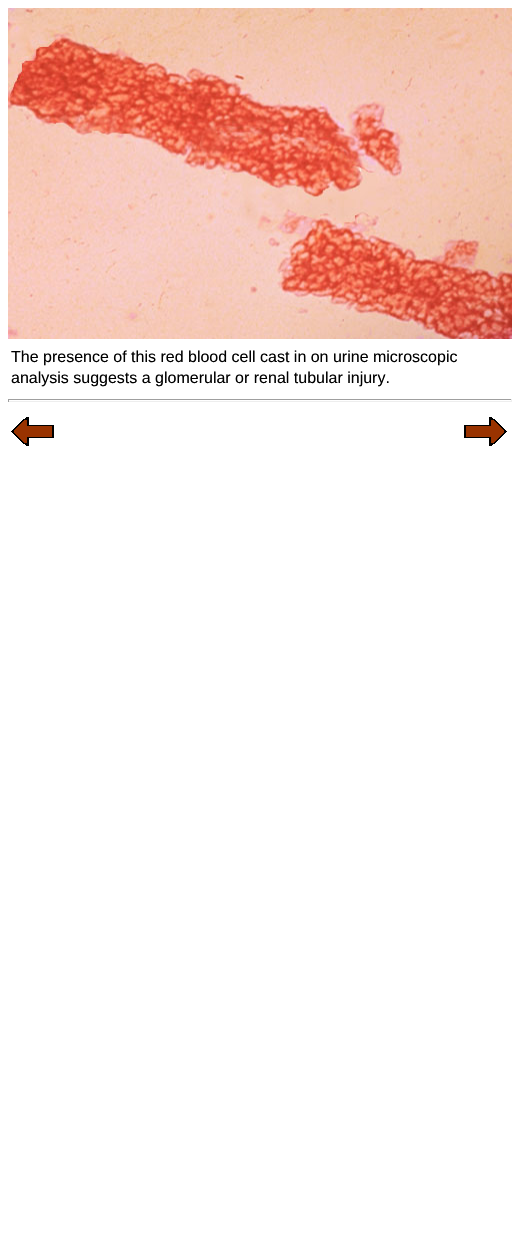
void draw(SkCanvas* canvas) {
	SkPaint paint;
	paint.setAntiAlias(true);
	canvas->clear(0xffffffff);
	canvas->drawImageRect(SkImages::DeferredFromEncodedData(SkData::MakeFromFileName("img1.png")), SkRect::MakeXYWH(8, 8, 504, 331), SkSamplingOptions());
	SkFont f1(fontMgr->matchFamilyStyle("Liberation Sans", SkFontStyle::Normal()), 16);
	f1.setSubpixel(true);
	paint.setColor(0xff000000);
	canvas->drawString("The presence of this red blood cell cast in on urine microscopic", 11, 362, f1, paint);
	canvas->drawString("analysis suggests a glomerular or renal tubular injury.", 11, 383, f1, paint);
	paint.setColor(0xff9f9f9f);
	canvas->drawRect(SkRect::MakeXYWH(8, 399, 504, 1), paint);
	paint.setColor(0xffeeeeee);
	canvas->drawRect(SkRect::MakeXYWH(511, 399, 1, 3), paint);
	canvas->drawRect(SkRect::MakeXYWH(8, 401, 504, 1), paint);
	paint.setColor(0xff9f9f9f);
	canvas->drawRect(SkRect::MakeXYWH(8, 399, 1, 3), paint);
	canvas->drawImageRect(SkImages::DeferredFromEncodedData(SkData::MakeFromFileName("img2.png")), SkRect::MakeXYWH(11, 417, 43, 29), SkSamplingOptions());
	canvas->drawImageRect(SkImages::DeferredFromEncodedData(SkData::MakeFromFileName("img3.png")), SkRect::MakeXYWH(464, 417, 43, 29), SkSamplingOptions());
}
